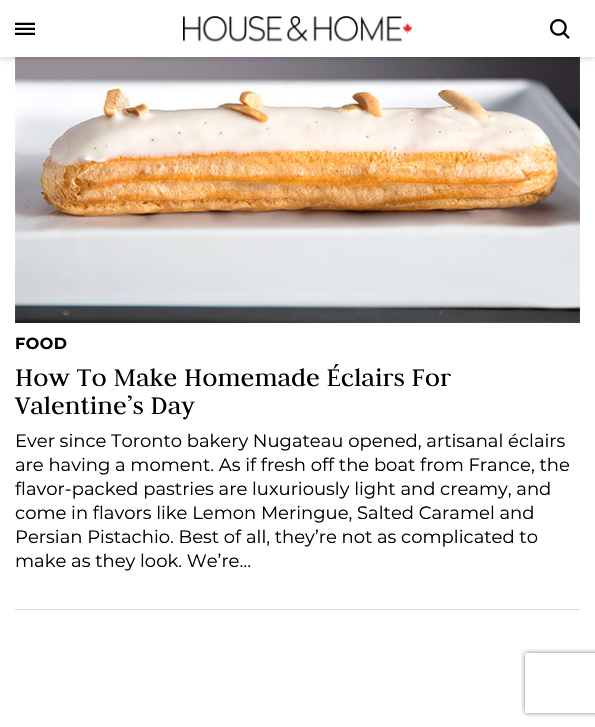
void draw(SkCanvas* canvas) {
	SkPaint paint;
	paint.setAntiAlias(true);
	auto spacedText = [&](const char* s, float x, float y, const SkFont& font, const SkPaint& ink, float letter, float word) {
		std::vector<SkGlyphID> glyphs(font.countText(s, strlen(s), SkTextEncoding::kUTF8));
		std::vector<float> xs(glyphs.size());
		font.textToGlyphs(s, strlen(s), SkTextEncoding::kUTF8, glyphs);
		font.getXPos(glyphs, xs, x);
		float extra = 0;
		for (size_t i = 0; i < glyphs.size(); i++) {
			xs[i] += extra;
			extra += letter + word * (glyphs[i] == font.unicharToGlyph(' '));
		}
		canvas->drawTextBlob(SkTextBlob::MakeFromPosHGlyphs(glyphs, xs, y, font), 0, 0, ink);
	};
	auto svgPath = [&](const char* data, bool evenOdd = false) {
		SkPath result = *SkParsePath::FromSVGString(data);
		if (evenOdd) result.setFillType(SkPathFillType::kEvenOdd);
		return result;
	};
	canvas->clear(0xffffffff);
	canvas->drawImageRect(SkImages::DeferredFromEncodedData(SkData::MakeFromFileName("img4.png")), SkRect::MakeXYWH(15, 57, 565, 266), SkSamplingOptions());
	paint.setColor(0x26000000);
	paint.setMaskFilter(SkMaskFilter::MakeBlur(kNormal_SkBlurStyle, 2.5));
	canvas->drawRect(SkRect::MakeXYWH(0, 2, 595, 57), paint);
	paint.setMaskFilter(nullptr);
	paint.setColor(0xffffffff);
	canvas->drawRect(SkRect::MakeXYWH(0, 0, 595, 57), paint);
	canvas->drawImageRect(SkImages::DeferredFromEncodedData(SkData::MakeFromFileName("img1.png")), SkRect::MakeXYWH(15, 22, 20, 13), SkSamplingOptions());
	canvas->drawImageRect(SkImages::DeferredFromEncodedData(SkData::MakeFromFileName("img2.png")), SkRect::MakeXYWH(183, 16, 229, 26), SkSamplingOptions());
	canvas->drawImageRect(SkImages::DeferredFromEncodedData(SkData::MakeFromFileName("img3.png")), SkRect::MakeXYWH(550, 19, 20, 20), SkSamplingOptions());
	paint.setColor(0xffd8d8d8);
	canvas->drawRect(SkRect::MakeXYWH(15, 609, 565, 1), paint);
	SkFont f1(fontMgr->matchFamilyStyle("Montserrat", SkFontStyle::Bold()), 16);
	f1.setSubpixel(true);
	paint.setColor(0xff000000);
	spacedText("FOOD", 15, 349, f1, paint, 0.5, 0);
	SkFont f2(fontMgr->matchFamilyStyle("Judson", SkFontStyle::Normal()), 28);
	f2.setSubpixel(true);
	canvas->drawString("How To Make Homemade Éclairs For", 15, 386, f2, paint);
	canvas->drawString("Valentine’s Day", 15, 414, f2, paint);
	SkFont f3(fontMgr->matchFamilyStyle("Montserrat", SkFontStyle::Normal()), 18);
	f3.setSubpixel(true);
	canvas->drawString("Ever since Toronto bakery Nugateau opened, artisanal éclairs", 15, 447, f3, paint);
	canvas->drawString("are having a moment. As if fresh off the boat from France, the", 15, 471, f3, paint);
	canvas->drawString("flavor-packed pastries are luxuriously light and creamy, and", 15, 495, f3, paint);
	canvas->drawString("come in flavors like Lemon Meringue, Salted Caramel and", 15, 519, f3, paint);
	canvas->drawString("Persian Pistachio. Best of all, they’re not as complicated to", 15, 543, f3, paint);
	canvas->drawString("make as they look. We’re…", 15, 567, f3, paint);
	canvas->save();
	canvas->clipPath(svgPath("M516 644H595V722H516ZM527 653H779C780 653 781 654 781 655V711C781 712 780 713 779 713H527C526 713 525 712 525 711V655C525 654 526 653 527 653Z", true), true);
	paint.setColor(0xff808080);
	paint.setMaskFilter(SkMaskFilter::MakeBlur(kNormal_SkBlurStyle, 2.5));
	canvas->drawRoundRect(SkRect::MakeXYWH(525, 653, 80, 60), 2, 2, paint);
	paint.setMaskFilter(nullptr);
	canvas->restore();
}
